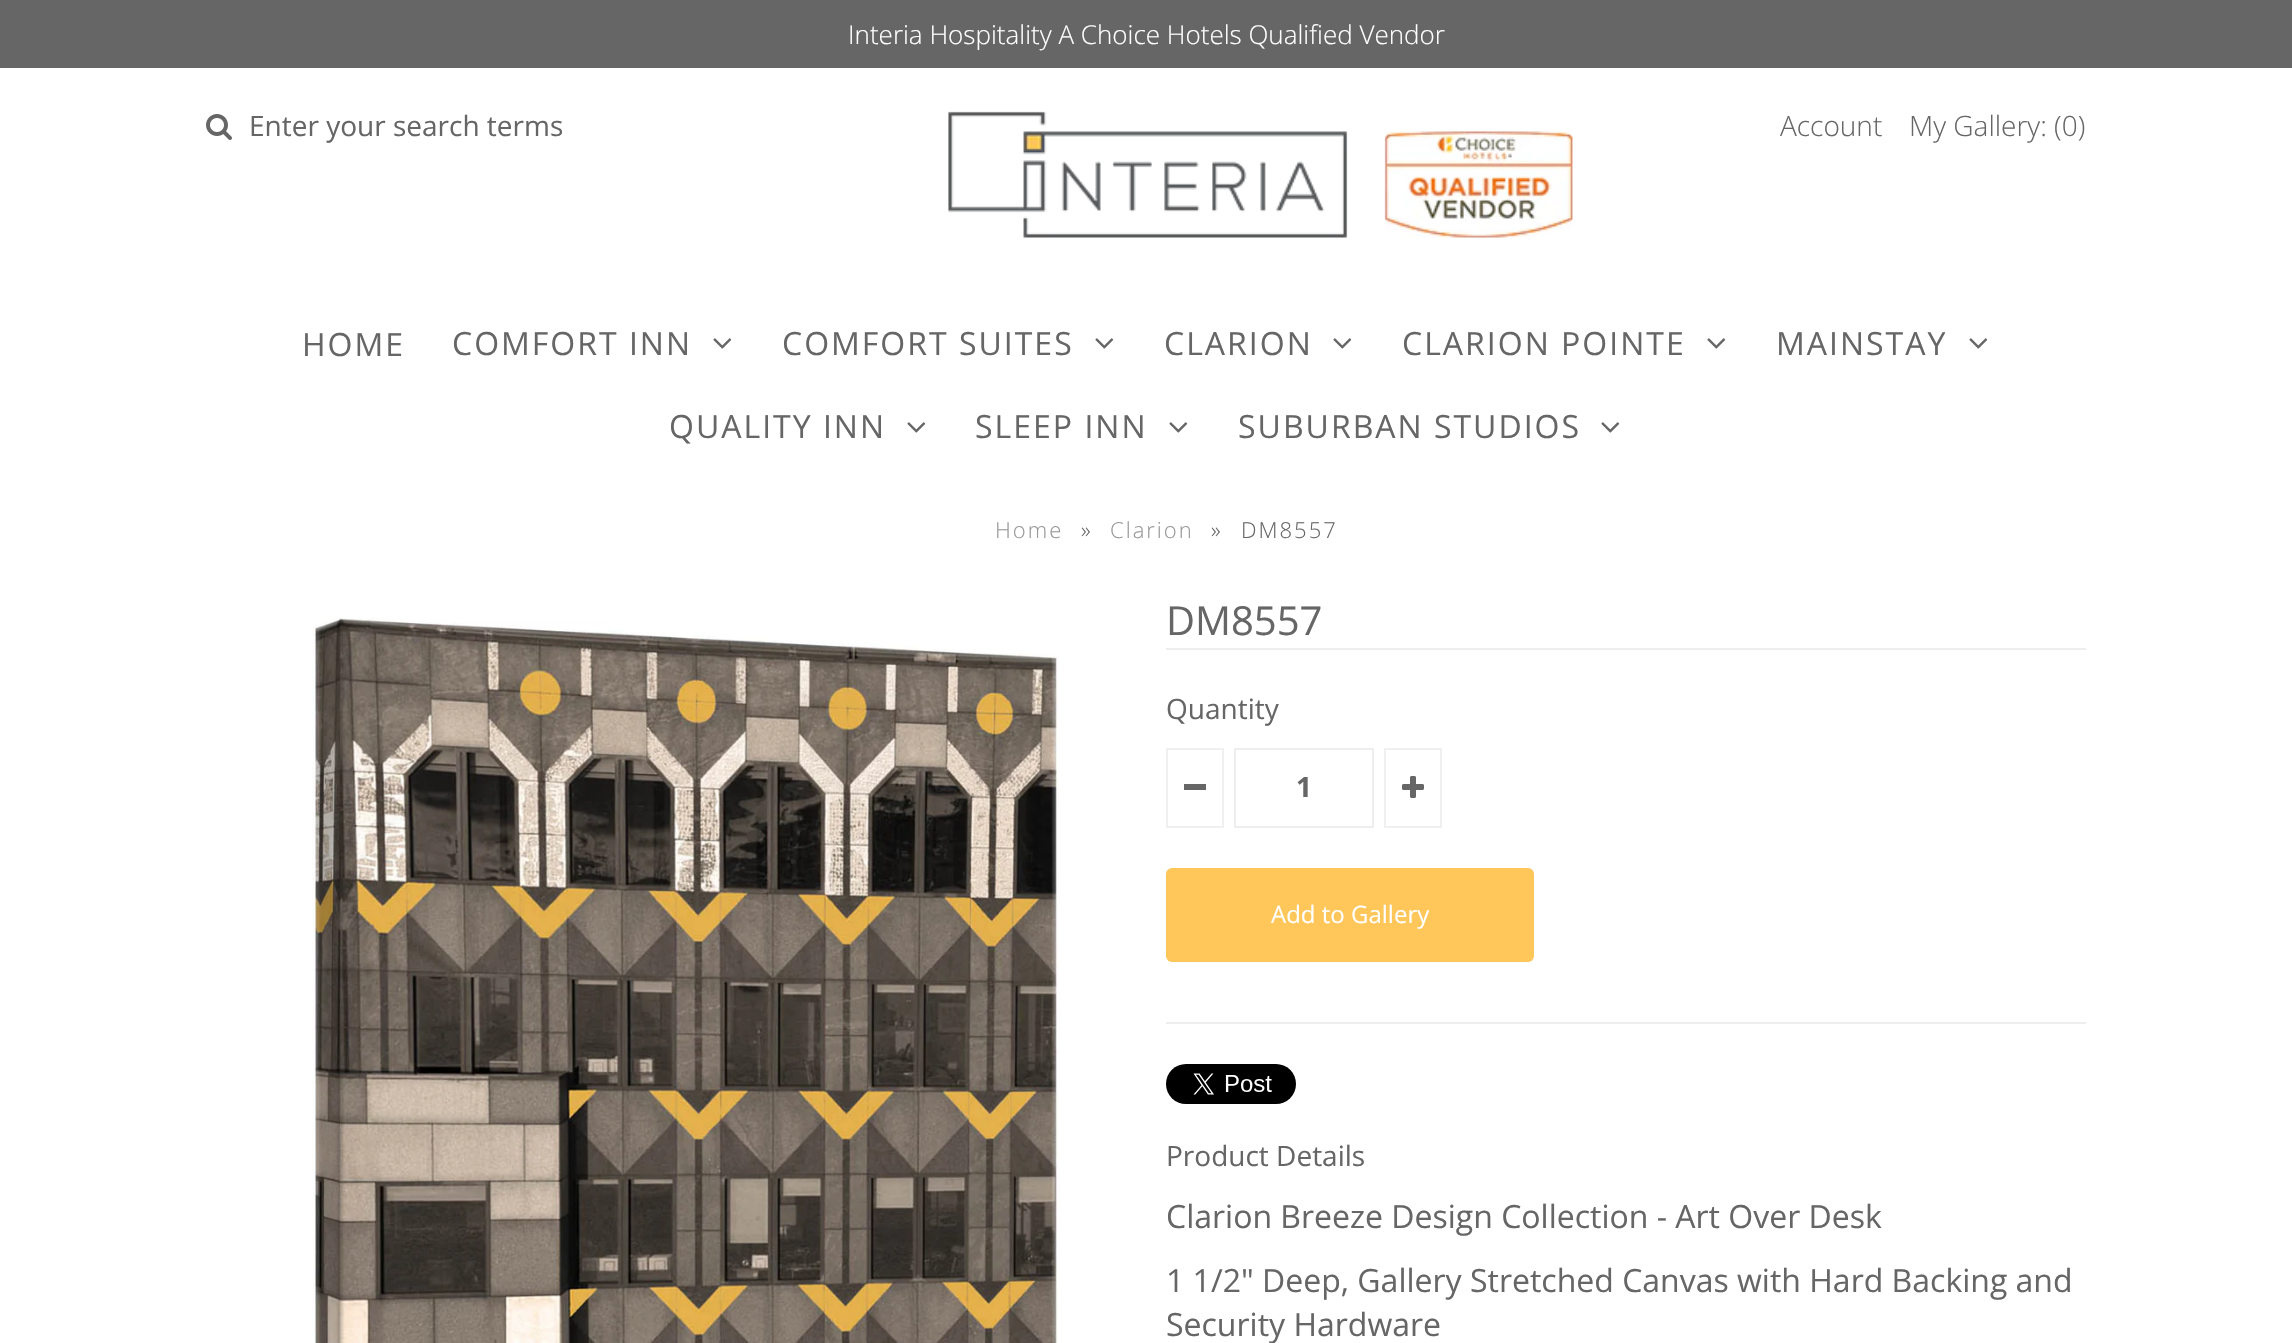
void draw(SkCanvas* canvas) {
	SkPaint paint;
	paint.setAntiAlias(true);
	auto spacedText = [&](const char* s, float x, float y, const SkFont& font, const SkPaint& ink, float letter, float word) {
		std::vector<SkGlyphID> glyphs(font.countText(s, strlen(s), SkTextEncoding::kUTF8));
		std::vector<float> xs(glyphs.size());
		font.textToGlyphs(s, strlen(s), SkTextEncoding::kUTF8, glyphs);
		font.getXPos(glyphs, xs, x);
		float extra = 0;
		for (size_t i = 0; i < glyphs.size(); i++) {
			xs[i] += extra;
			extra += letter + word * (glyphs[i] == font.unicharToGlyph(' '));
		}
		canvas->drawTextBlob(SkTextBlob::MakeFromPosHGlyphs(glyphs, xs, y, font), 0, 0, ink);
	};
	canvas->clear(0xffffffff);
	paint.setColor(0xff666666);
	canvas->drawRect(SkRect::MakeXYWH(0, 0, 2292, 68), paint);
	SkFont f1(fontMgr->matchFamilyStyle("Open Sans", SkFontStyle(300, SkFontStyle::kNormal_Width, SkFontStyle::kUpright_Slant)), 26);
	f1.setSubpixel(true);
	paint.setColor(0xffffffff);
	canvas->drawString("Interia Hospitality A Choice Hotels Qualified Vendor", 848, 44, f1, paint);
	canvas->drawImageRect(SkImages::DeferredFromEncodedData(SkData::MakeFromFileName("img1.png")), SkRect::MakeXYWH(206, 114, 26, 26), SkSamplingOptions());
	SkFont f2(fontMgr->matchFamilyStyle("Open Sans", SkFontStyle::Normal()), 28);
	f2.setSubpixel(true);
	paint.setColor(0xff666666);
	canvas->drawString("Enter your search terms", 249, 136, f2, paint);
	canvas->drawImageRect(SkImages::DeferredFromEncodedData(SkData::MakeFromFileName("img2.png")), SkRect::MakeXYWH(948, 111, 625, 127), SkSamplingOptions());
	SkFont f3(fontMgr->matchFamilyStyle("Open Sans", SkFontStyle(300, SkFontStyle::kNormal_Width, SkFontStyle::kUpright_Slant)), 28);
	f3.setSubpixel(true);
	canvas->drawString("Account", 1780, 136, f3, paint);
	canvas->drawString("My Gallery: (0)", 1909, 136, f3, paint);
	SkFont f4(fontMgr->matchFamilyStyle("Open Sans", SkFontStyle::Normal()), 32);
	f4.setSubpixel(true);
	spacedText("HOME", 302, 356, f4, paint, 2, 0);
	spacedText("COMFORT INN", 452, 355, f4, paint, 2, 0);
	canvas->drawImageRect(SkImages::DeferredFromEncodedData(SkData::MakeFromFileName("img3.png")), SkRect::MakeXYWH(713, 338, 19, 11), SkSamplingOptions());
	spacedText("COMFORT SUITES", 782, 355, f4, paint, 2, 0);
	canvas->drawImageRect(SkImages::DeferredFromEncodedData(SkData::MakeFromFileName("img3.png")), SkRect::MakeXYWH(1095, 338, 19, 11), SkSamplingOptions());
	spacedText("CLARION", 1164, 355, f4, paint, 2, 0);
	canvas->drawImageRect(SkImages::DeferredFromEncodedData(SkData::MakeFromFileName("img3.png")), SkRect::MakeXYWH(1333, 338, 19, 11), SkSamplingOptions());
	spacedText("CLARION POINTE", 1402, 355, f4, paint, 2, 0);
	canvas->drawImageRect(SkImages::DeferredFromEncodedData(SkData::MakeFromFileName("img3.png")), SkRect::MakeXYWH(1707, 338, 19, 11), SkSamplingOptions());
	spacedText("MAINSTAY", 1776, 355, f4, paint, 2, 0);
	canvas->drawImageRect(SkImages::DeferredFromEncodedData(SkData::MakeFromFileName("img3.png")), SkRect::MakeXYWH(1969, 338, 19, 11), SkSamplingOptions());
	spacedText("QUALITY INN", 669, 438, f4, paint, 2, 0);
	canvas->drawImageRect(SkImages::DeferredFromEncodedData(SkData::MakeFromFileName("img3.png")), SkRect::MakeXYWH(907, 422, 19, 11), SkSamplingOptions());
	spacedText("SLEEP INN", 975, 438, f4, paint, 2, 0);
	canvas->drawImageRect(SkImages::DeferredFromEncodedData(SkData::MakeFromFileName("img3.png")), SkRect::MakeXYWH(1169, 422, 19, 11), SkSamplingOptions());
	spacedText("SUBURBAN STUDIOS", 1238, 438, f4, paint, 2, 0);
	canvas->drawImageRect(SkImages::DeferredFromEncodedData(SkData::MakeFromFileName("img3.png")), SkRect::MakeXYWH(1601, 422, 19, 11), SkSamplingOptions());
	SkFont f5(fontMgr->matchFamilyStyle("Open Sans", SkFontStyle(300, SkFontStyle::kNormal_Width, SkFontStyle::kUpright_Slant)), 22);
	f5.setSubpixel(true);
	paint.setColor(0xff999999);
	spacedText("Home", 995, 538, f5, paint, 2, 0);
	paint.setColor(0xff666666);
	spacedText("»", 1081, 538, f5, paint, 2, 0);
	paint.setColor(0xff999999);
	spacedText("Clarion", 1110, 538, f5, paint, 2, 0);
	paint.setColor(0xff666666);
	spacedText("»", 1211, 538, f5, paint, 2, 0);
	spacedText("DM8557", 1241, 538, f5, paint, 2, 0);
	canvas->drawImageRect(SkImages::DeferredFromEncodedData(SkData::MakeFromFileName("img4.png")), SkRect::MakeXYWH(312, 618, 747, 725), SkSamplingOptions());
	paint.setColor(0xffeeeeee);
	canvas->drawRect(SkRect::MakeXYWH(1166, 648, 920, 2), paint);
	SkFont f6(fontMgr->matchFamilyStyle("Open Sans", SkFontStyle::Normal()), 40);
	f6.setSubpixel(true);
	paint.setColor(0xff666666);
	canvas->drawString("DM8557", 1166, 635, f6, paint);
	canvas->drawString("Quantity", 1166, 719, f2, paint);
	paint.setStroke(true);
	paint.setStrokeWidth(2);
	paint.setColor(0xfff0f0f0);
	canvas->drawRect(SkRect::MakeXYWH(1167, 749, 56, 78), paint);
	paint.setStroke(false);
	paint.setColor(0xff666666);
	canvas->drawRect(SkRect::MakeXYWH(1184, 784, 22, 6), paint);
	paint.setStroke(true);
	paint.setColor(0xffeeeeee);
	canvas->drawRect(SkRect::MakeXYWH(1235, 749, 138, 78), paint);
	SkFont f7(fontMgr->matchFamilyStyle("Open Sans", SkFontStyle::Bold()), 28);
	f7.setSubpixel(true);
	paint.setStroke(false);
	paint.setColor(0xff666666);
	canvas->drawString("1", 1296, 797, f7, paint);
	paint.setStroke(true);
	paint.setColor(0xfff0f0f0);
	canvas->drawRect(SkRect::MakeXYWH(1385, 749, 56, 78), paint);
	canvas->drawImageRect(SkImages::DeferredFromEncodedData(SkData::MakeFromFileName("img5.png")), SkRect::MakeXYWH(1402, 776, 22, 22), SkSamplingOptions());
	paint.setStroke(false);
	paint.setColor(0xffffc659);
	canvas->drawRoundRect(SkRect::MakeXYWH(1166, 868, 368, 94), 6, 6, paint);
	SkFont f8(fontMgr->matchFamilyStyle("Open Sans", SkFontStyle::Normal()), 24);
	f8.setSubpixel(true);
	paint.setColor(0xffffffff);
	canvas->drawString("Add to Gallery", 1271, 923, f8, paint);
	paint.setColor(0xffeeeeee);
	canvas->drawRect(SkRect::MakeXYWH(1166, 1022, 920, 2), paint);
	canvas->drawImageRect(SkImages::DeferredFromEncodedData(SkData::MakeFromFileName("img6.png")), SkRect::MakeXYWH(1166, 1064, 130, 40), SkSamplingOptions());
	paint.setColor(0xff666666);
	canvas->drawString("Product Details", 1166, 1166, f2, paint);
	canvas->drawString("Clarion Breeze Design Collection - Art Over Desk", 1166, 1228, f4, paint);
	canvas->drawString("1 1/2\" Deep, Gallery Stretched Canvas with Hard Backing and", 1166, 1292, f4, paint);
	canvas->drawString("Security Hardware", 1166, 1336, f4, paint);
}
